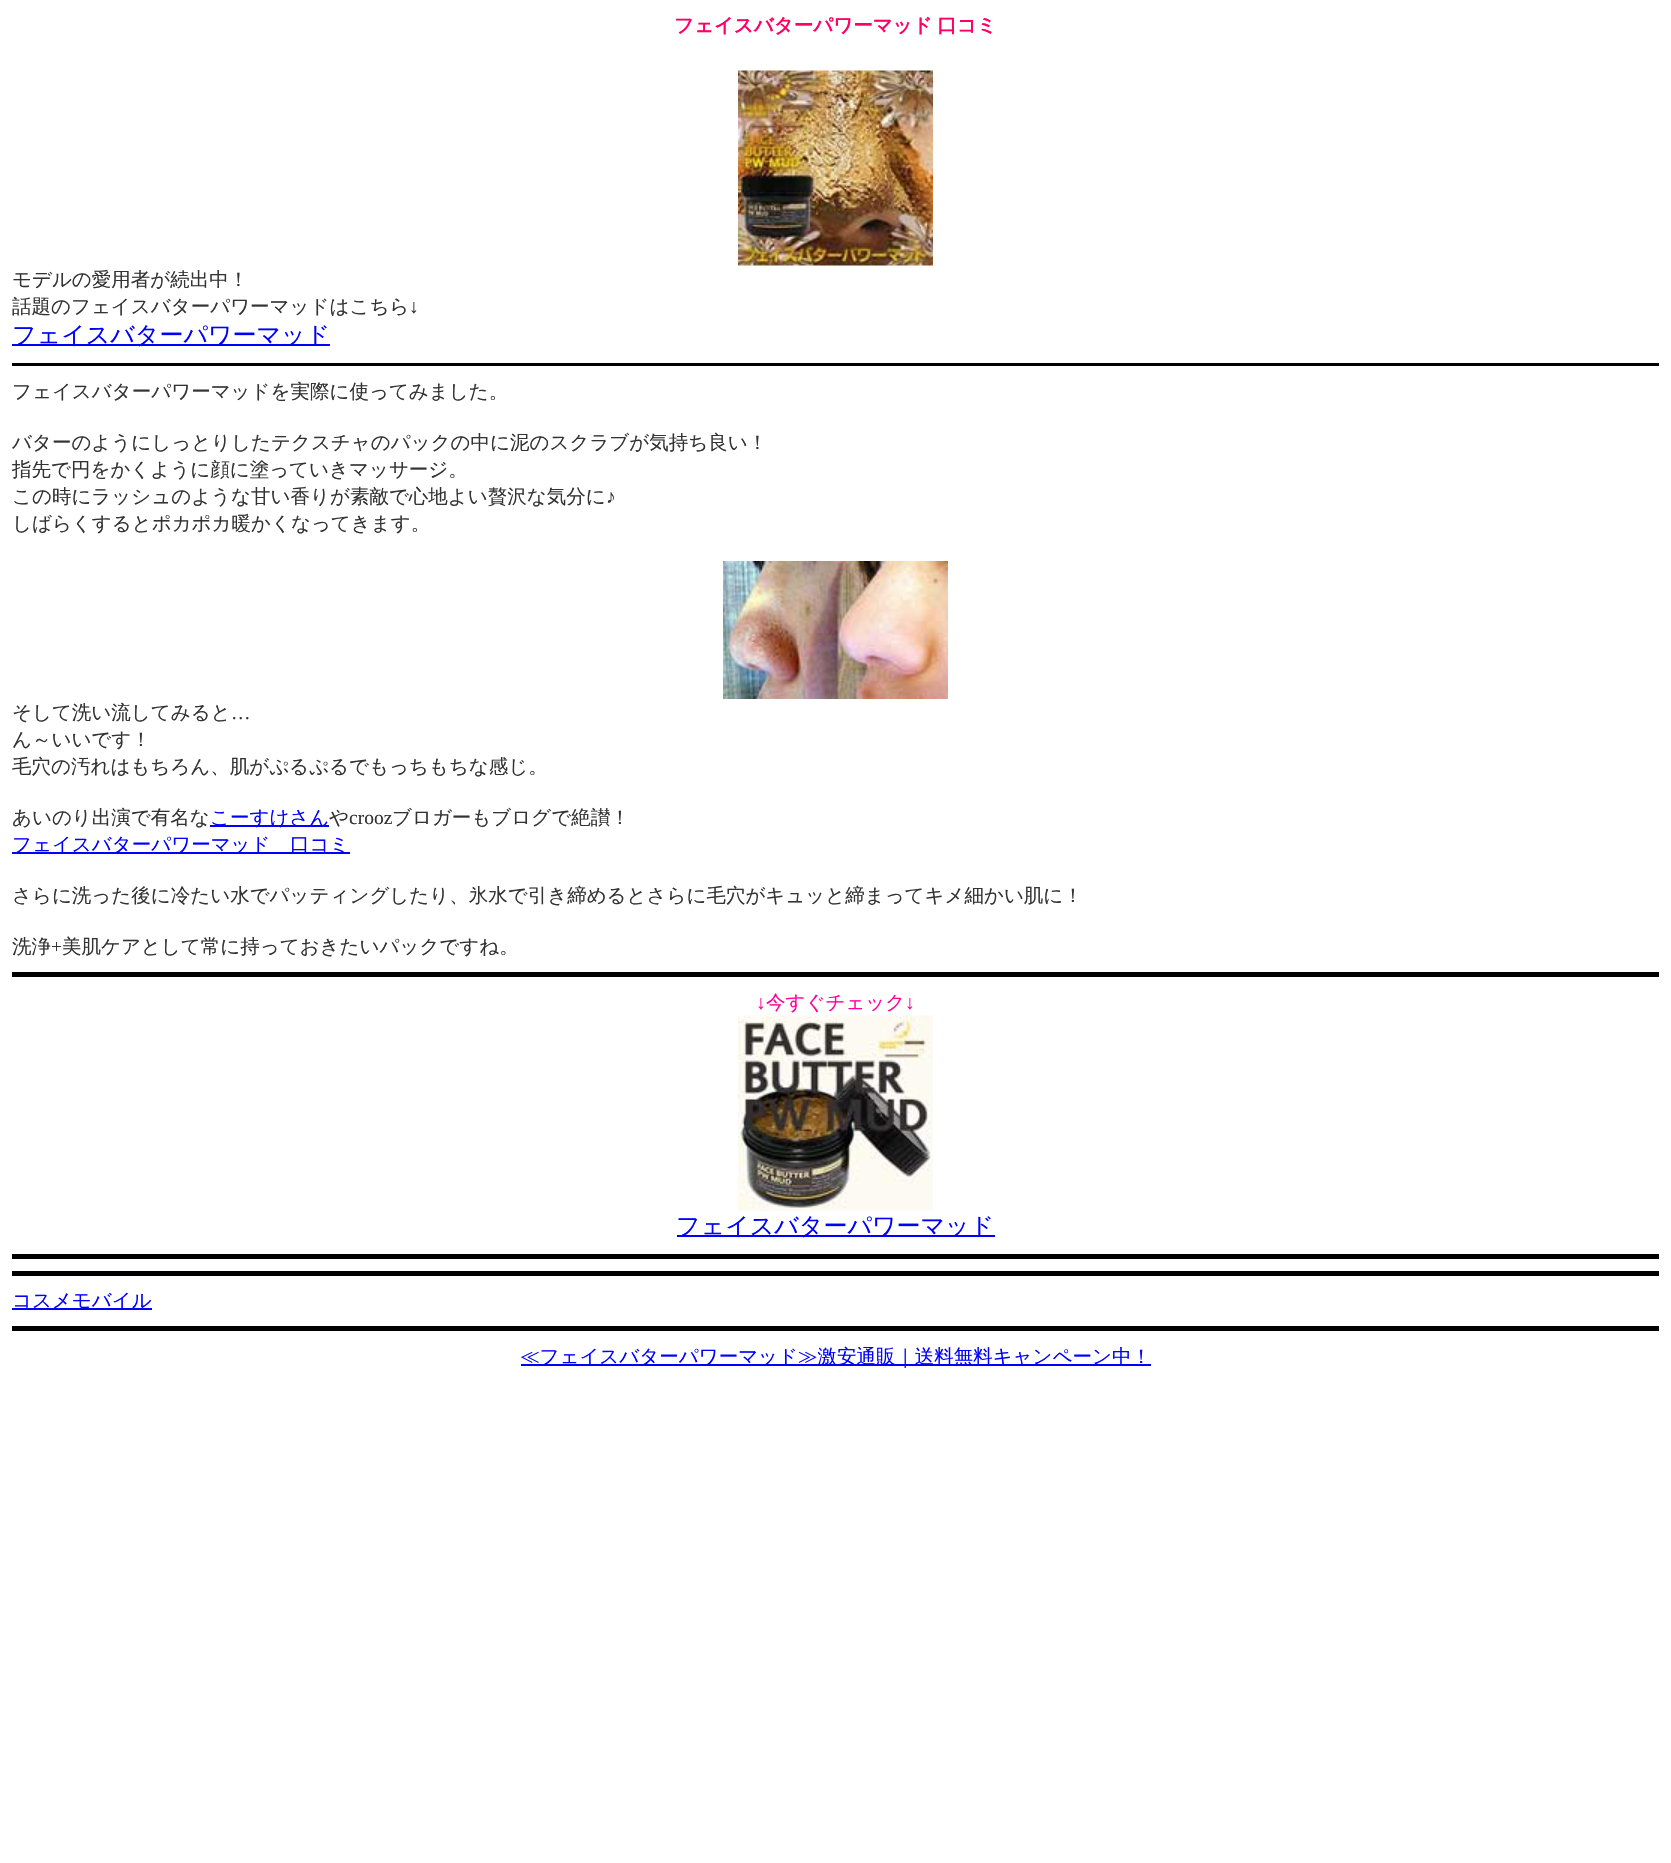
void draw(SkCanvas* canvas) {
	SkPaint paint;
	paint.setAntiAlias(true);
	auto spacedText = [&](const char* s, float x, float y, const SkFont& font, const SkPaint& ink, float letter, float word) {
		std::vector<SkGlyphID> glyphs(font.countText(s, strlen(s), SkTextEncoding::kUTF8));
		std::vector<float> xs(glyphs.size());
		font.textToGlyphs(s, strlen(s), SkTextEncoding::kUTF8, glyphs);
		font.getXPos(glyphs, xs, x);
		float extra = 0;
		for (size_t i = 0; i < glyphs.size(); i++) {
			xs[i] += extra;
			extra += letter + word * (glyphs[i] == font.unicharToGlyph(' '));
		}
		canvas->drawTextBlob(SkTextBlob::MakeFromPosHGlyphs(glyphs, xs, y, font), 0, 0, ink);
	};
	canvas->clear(0xffffffff);
	SkFont f1(fontMgr->matchFamilyStyle("WenQuanYi Zen Hei", SkFontStyle::Bold()), 19.5);
	f1.setSubpixel(true);
	paint.setColor(0xffff0066);
	spacedText("フェイスバターパワーマッド 口コミ", 674, 32, f1, paint, 0, -1);
	canvas->drawImageRect(SkImages::DeferredFromEncodedData(SkData::MakeFromFileName("img1.png")), SkRect::MakeXYWH(738, 70, 195, 196), SkSamplingOptions());
	SkFont f2(fontMgr->matchFamilyStyle("WenQuanYi Zen Hei", SkFontStyle(500, SkFontStyle::kNormal_Width, SkFontStyle::kUpright_Slant)), 19.5);
	f2.setSubpixel(true);
	paint.setColor(0xff333333);
	canvas->drawString("モデルの愛用者が続出中！", 12, 286, f2, paint);
	canvas->drawString("話題のフェイスバターパワーマッドはこちら", 12, 313, f2, paint);
	SkFont f3(fontMgr->matchFamilyStyle("Liberation Serif", SkFontStyle::Normal()), 19.5);
	f3.setSubpixel(true);
	canvas->drawString("↓", 409, 313, f3, paint);
	paint.setColor(0xff0000ff);
	canvas->drawRect(SkRect::MakeXYWH(12, 344, 318, 2), paint);
	SkFont f4(fontMgr->matchFamilyStyle("WenQuanYi Zen Hei", SkFontStyle(500, SkFontStyle::kNormal_Width, SkFontStyle::kUpright_Slant)), 24);
	f4.setSubpixel(true);
	canvas->drawString("フェイスバターパワーマッド", 12, 343, f4, paint);
	paint.setColor(0xff000000);
	canvas->drawRect(SkRect::MakeXYWH(12, 363, 1647, 3), paint);
	paint.setColor(0xff333333);
	canvas->drawString("フェイスバターパワーマッドを実際に使ってみました。", 12, 398, f2, paint);
	canvas->drawString("バターのようにしっとりしたテクスチャのパックの中に泥のスクラブが気持ち良い！", 12, 449, f2, paint);
	canvas->drawString("指先で円をかくように顔に塗っていきマッサージ。", 12, 476, f2, paint);
	canvas->drawString("この時にラッシュのような甘い香りが素敵で心地よい贅沢な気分に", 12, 503, f2, paint);
	canvas->drawString("♪", 606, 503, f3, paint);
	canvas->drawString("しばらくするとポカポカ暖かくなってきます。", 12, 530, f2, paint);
	canvas->drawImageRect(SkImages::DeferredFromEncodedData(SkData::MakeFromFileName("img2.png")), SkRect::MakeXYWH(723, 561, 225, 138), SkSamplingOptions());
	canvas->drawString("そして洗い流してみると", 12, 719, f2, paint);
	canvas->drawString("…", 231, 719, f3, paint);
	canvas->drawString("ん～いいです！", 12, 746, f2, paint);
	canvas->drawString("毛穴の汚れはもちろん、肌がぷるぷるでもっちもちな感じ。", 12, 773, f2, paint);
	canvas->drawString("あいのり出演で有名な", 12, 824, f2, paint);
	paint.setColor(0xff0000ff);
	canvas->drawRect(SkRect::MakeXYWH(210, 825, 119, 2), paint);
	canvas->drawString("こーすけさん", 210, 824, f2, paint);
	paint.setColor(0xff333333);
	canvas->drawString("や", 329, 824, f2, paint);
	canvas->drawString("crooz", 349, 824, f3, paint);
	canvas->drawString("ブロガーもブログで絶讃！", 392, 824, f2, paint);
	paint.setColor(0xff0000ff);
	canvas->drawRect(SkRect::MakeXYWH(12, 852, 338, 2), paint);
	canvas->drawString("フェイスバターパワーマッド　口コミ", 12, 851, f2, paint);
	paint.setColor(0xff333333);
	canvas->drawString("さらに洗った後に冷たい水でパッティングしたり、氷水で引き締めるとさらに毛穴がキュッと締まってキメ細かい肌に！", 12, 902, f2, paint);
	canvas->drawString("洗浄", 12, 953, f2, paint);
	canvas->drawString("+", 51, 953, f3, paint);
	canvas->drawString("美肌ケアとして常に持っておきたいパックですね。", 62, 953, f2, paint);
	paint.setColor(0xff000000);
	canvas->drawRect(SkRect::MakeXYWH(12, 972, 1647, 5), paint);
	paint.setColor(0xffff0099);
	canvas->drawString("↓", 756, 1009, f3, paint);
	canvas->drawString("今すぐチェック", 766, 1009, f2, paint);
	canvas->drawString("↓", 905, 1009, f3, paint);
	canvas->drawImageRect(SkImages::DeferredFromEncodedData(SkData::MakeFromFileName("img3.png")), SkRect::MakeXYWH(738, 1015, 195, 196), SkSamplingOptions());
	paint.setColor(0xff0000ff);
	canvas->drawRect(SkRect::MakeXYWH(677, 1235, 318, 2), paint);
	canvas->drawString("フェイスバターパワーマッド", 676, 1234, f4, paint);
	paint.setColor(0xff000000);
	canvas->drawRect(SkRect::MakeXYWH(12, 1254, 1647, 5), paint);
	canvas->drawRect(SkRect::MakeXYWH(12, 1271, 1647, 5), paint);
	paint.setColor(0xff0000ff);
	canvas->drawRect(SkRect::MakeXYWH(12, 1308, 140, 2), paint);
	canvas->drawString("コスメモバイル", 12, 1307, f2, paint);
	paint.setColor(0xff000000);
	canvas->drawRect(SkRect::MakeXYWH(12, 1326, 1647, 5), paint);
	paint.setColor(0xff0000ff);
	canvas->drawRect(SkRect::MakeXYWH(521, 1364, 630, 2), paint);
	canvas->drawString("≪フェイスバターパワーマッド≫激安通販｜送料無料キャンペーン中！", 520, 1363, f2, paint);
}
